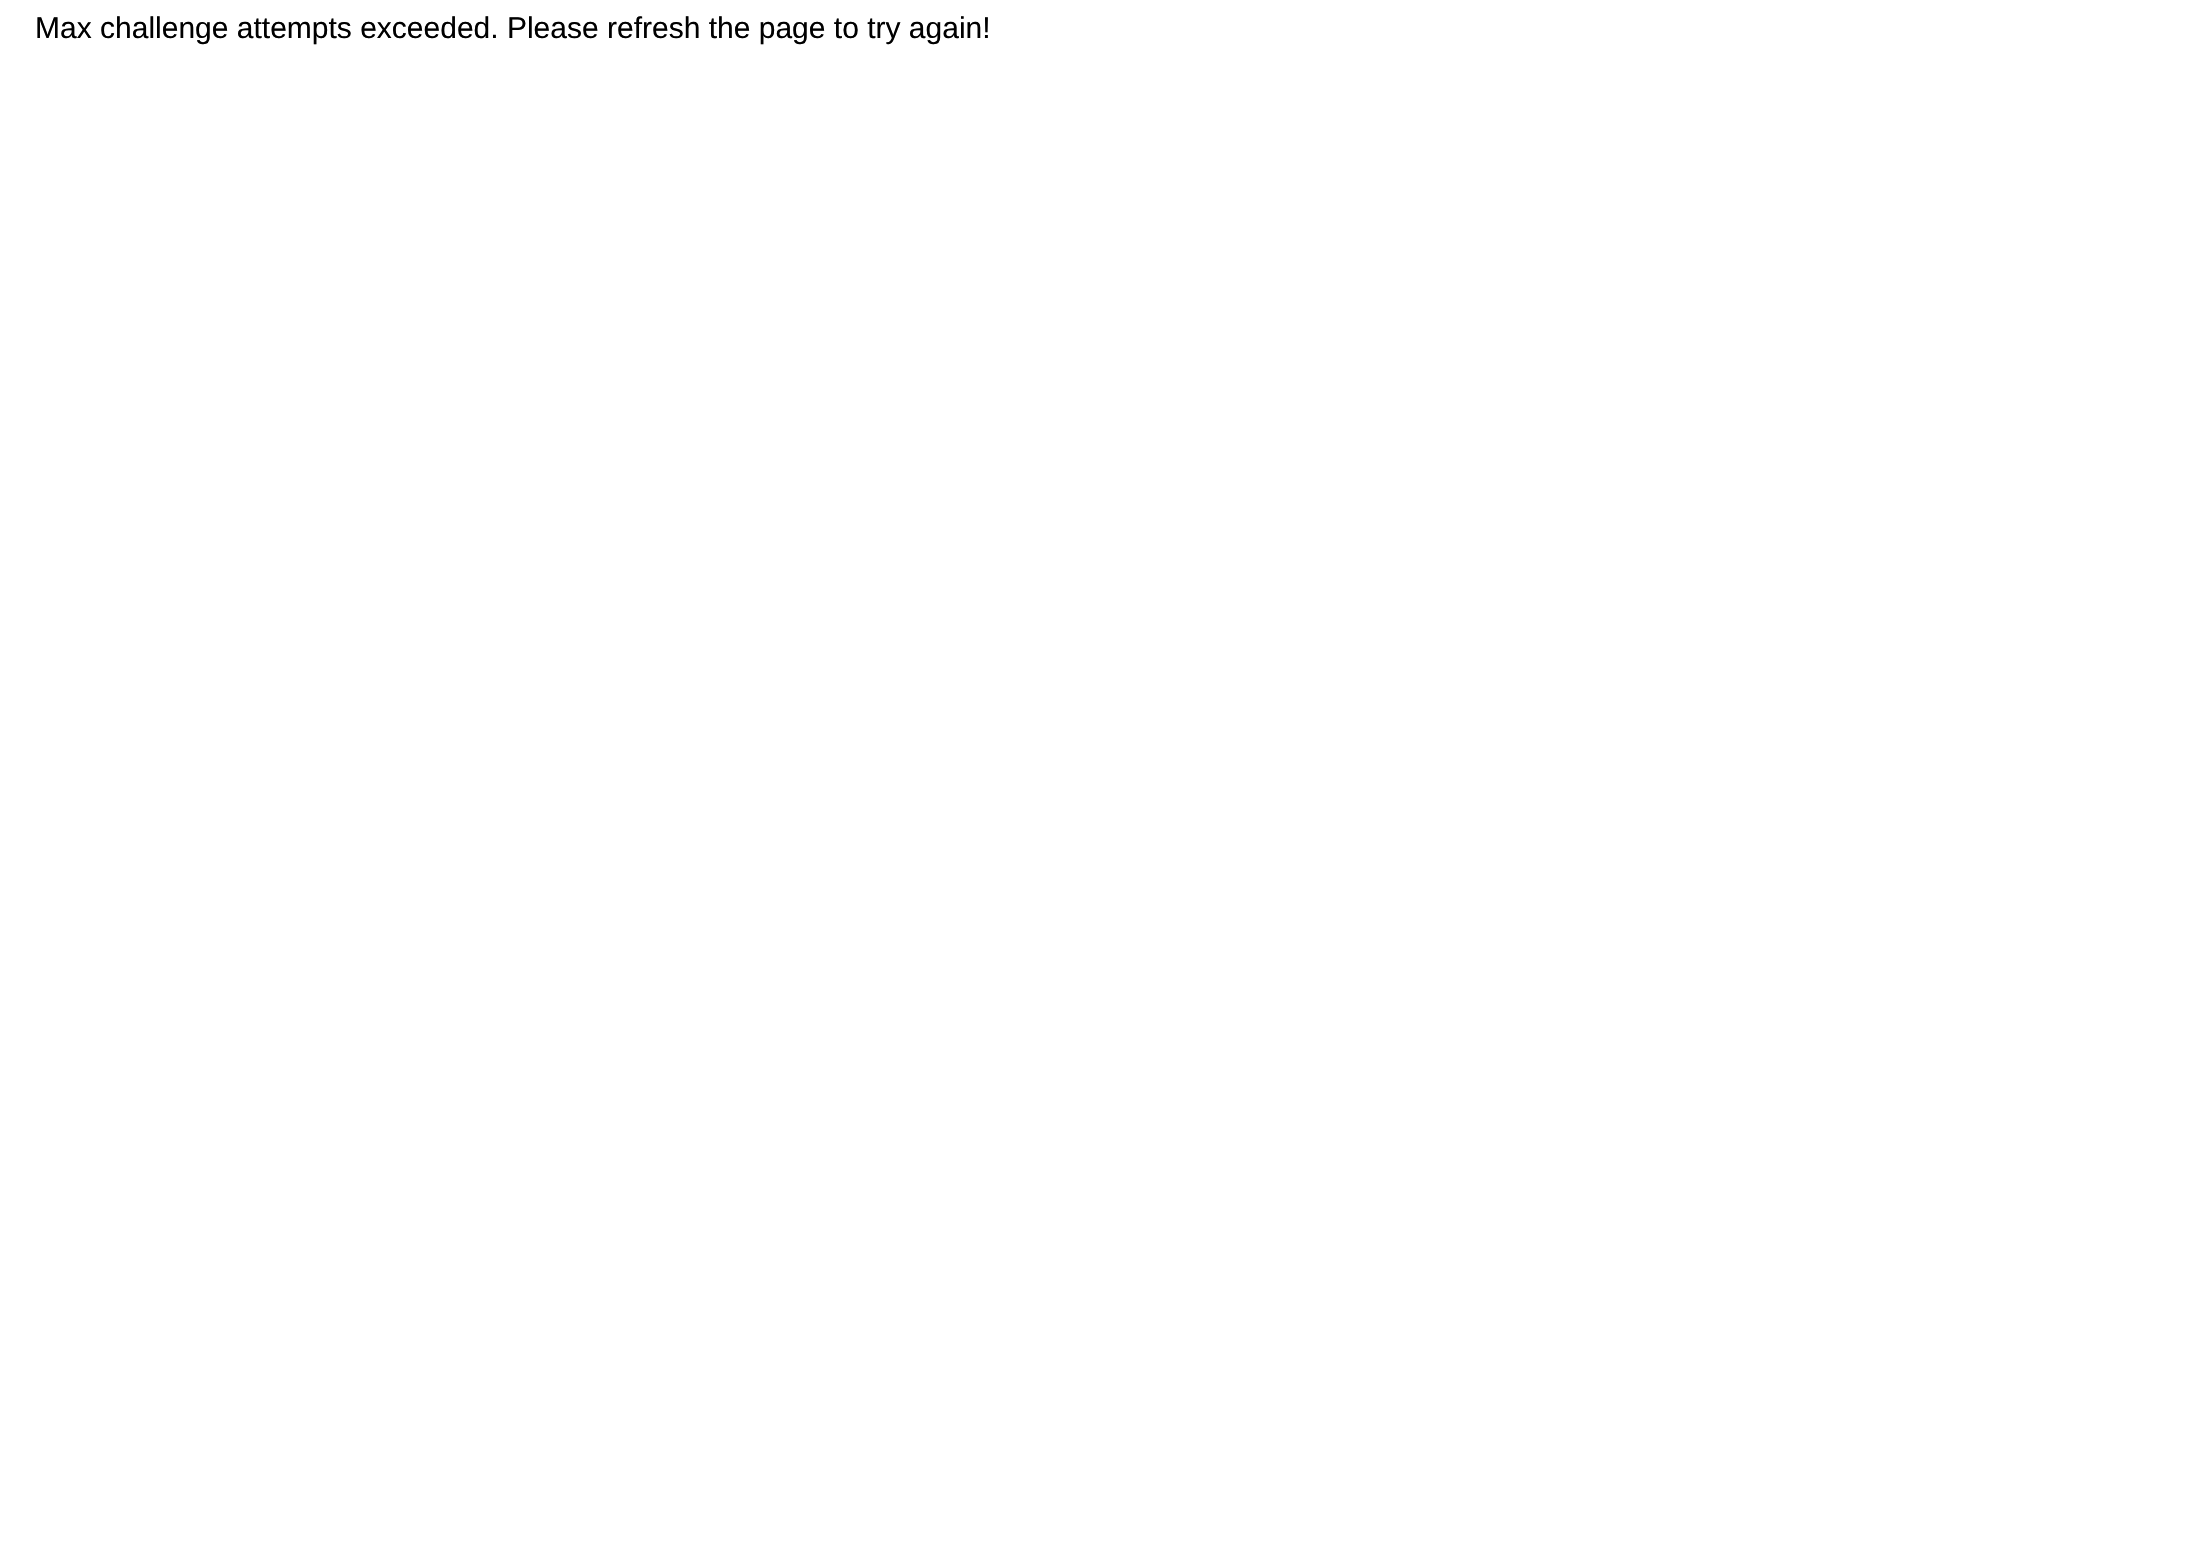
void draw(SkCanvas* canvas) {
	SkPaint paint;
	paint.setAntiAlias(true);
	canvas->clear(0xffffffff);
	SkFont f1(fontMgr->matchFamilyStyle("Liberation Sans", SkFontStyle::Normal()), 30);
	f1.setSubpixel(true);
	paint.setColor(0xff000000);
	canvas->drawString("Max challenge attempts exceeded. Please refresh the page to try again!", 35, 38, f1, paint);
}
